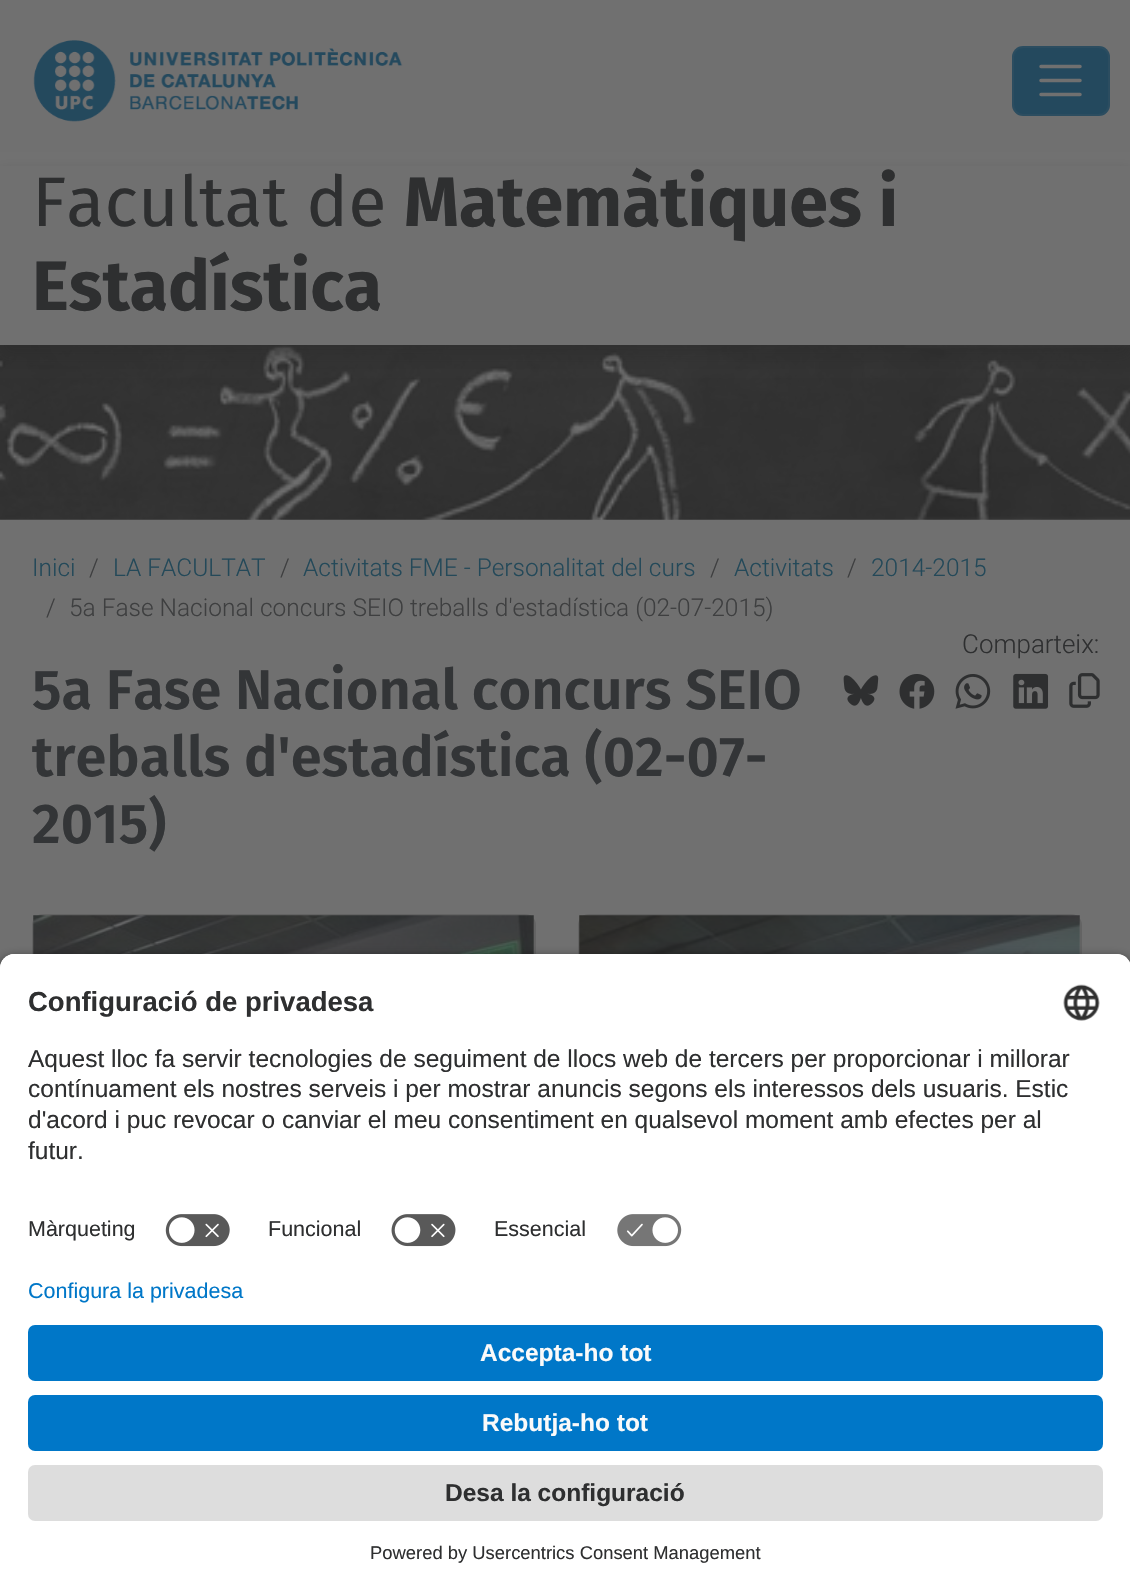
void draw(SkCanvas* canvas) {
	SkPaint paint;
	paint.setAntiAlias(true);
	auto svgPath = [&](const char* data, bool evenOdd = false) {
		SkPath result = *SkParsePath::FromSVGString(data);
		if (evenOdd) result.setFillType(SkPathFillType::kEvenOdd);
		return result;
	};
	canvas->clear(0xff707070);
	canvas->drawImageRect(SkImages::DeferredFromEncodedData(SkData::MakeFromFileName("img1.png")), SkRect::MakeXYWH(33, 40, 370, 82), SkSamplingOptions());
	paint.setColor(0xff24495e);
	canvas->drawRoundRect(SkRect::MakeXYWH(1012, 46, 98, 70), 11, 11, paint);
	paint.setStroke(true);
	paint.setStrokeWidth(2);
	paint.setColor(0x1a707070);
	canvas->drawRoundRect(SkRect::MakeXYWH(1013, 47, 96, 68), 10, 10, paint);
	paint.setStrokeWidth(3.5);
	paint.setStrokeCap(SkPaint::kRound_Cap);
	paint.setColor(0xff707070);
	canvas->drawPath(svgPath("M1041 66.5H1080M1041 80.5H1080M1041 94.5H1080"), paint);
	canvas->drawImageRect(SkImages::DeferredFromEncodedData(SkData::MakeFromFileName("img2.png")), SkRect::MakeXYWH(0, 345, 1130, 175), SkSamplingOptions());
	paint.setStroke(false);
	paint.setColor(0x33242424);
	paint.setMaskFilter(SkMaskFilter::MakeBlur(kNormal_SkBlurStyle, 7));
	canvas->drawRect(SkRect::MakeXYWH(0, 173, 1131, 184), paint);
	paint.setMaskFilter(nullptr);
	paint.setColor(0xff707070);
	canvas->drawRect(SkRect::MakeXYWH(0, 166, 1130, 179), paint);
	SkFont f1(fontMgr->matchFamilyStyle("Fira Sans", SkFontStyle::Normal()), 70);
	f1.setSubpixel(true);
	paint.setColor(0xff2e2f30);
	canvas->drawString("Facultat de", 32, 226, f1, paint);
	SkFont f2(fontMgr->matchFamilyStyle("Fira Sans", SkFontStyle::Bold()), 70);
	f2.setSubpixel(true);
	canvas->drawString("Matemàtiques i", 404, 226, f2, paint);
	canvas->drawString("Estadística", 32, 310, f2, paint);
	SkFont f3(fontMgr->matchFamilyStyle("Roboto", SkFontStyle(300, SkFontStyle::kNormal_Width, SkFontStyle::kUpright_Slant)), 24.5);
	f3.setSubpixel(true);
	paint.setColor(0xff244959);
	canvas->drawString("Inici", 32, 576, f3, paint);
	paint.setColor(0xff3e3f40);
	canvas->drawString("/", 89, 576, f3, paint);
	paint.setColor(0xff244959);
	canvas->drawString("LA FACULTAT", 113, 576, f3, paint);
	paint.setColor(0xff3e3f40);
	canvas->drawString("/", 280, 576, f3, paint);
	paint.setColor(0xff244959);
	canvas->drawString("Activitats FME - Personalitat del curs", 303, 576, f3, paint);
	paint.setColor(0xff3e3f40);
	canvas->drawString("/", 710, 576, f3, paint);
	paint.setColor(0xff244959);
	canvas->drawString("Activitats", 734, 576, f3, paint);
	paint.setColor(0xff3e3f40);
	canvas->drawString("/", 847, 576, f3, paint);
	paint.setColor(0xff244959);
	canvas->drawString("2014-2015", 871, 576, f3, paint);
	paint.setColor(0xff3e3f40);
	canvas->drawString("/", 46, 616, f3, paint);
	canvas->drawString("5a Fase Nacional concurs SEIO treballs d'estadística (02-07-2015)", 69, 616, f3, paint);
	SkFont f4(fontMgr->matchFamilyStyle("Roboto", SkFontStyle(300, SkFontStyle::kNormal_Width, SkFontStyle::kUpright_Slant)), 26);
	f4.setSubpixel(true);
	paint.setColor(0xff2e2f30);
	canvas->drawString("Comparteix:", 962, 653, f4, paint);
	canvas->drawImageRect(SkImages::DeferredFromEncodedData(SkData::MakeFromFileName("img3.png")), SkRect::MakeXYWH(843, 675, 36, 31), SkSamplingOptions());
	canvas->drawImageRect(SkImages::DeferredFromEncodedData(SkData::MakeFromFileName("img4.png")), SkRect::MakeXYWH(899, 674, 36, 35), SkSamplingOptions());
	canvas->drawImageRect(SkImages::DeferredFromEncodedData(SkData::MakeFromFileName("img5.png")), SkRect::MakeXYWH(955, 674, 36, 35), SkSamplingOptions());
	canvas->drawImageRect(SkImages::DeferredFromEncodedData(SkData::MakeFromFileName("img6.png")), SkRect::MakeXYWH(1013, 673, 36, 36), SkSamplingOptions());
	canvas->drawImageRect(SkImages::DeferredFromEncodedData(SkData::MakeFromFileName("img7.png")), SkRect::MakeXYWH(1069, 673, 31, 35), SkSamplingOptions());
	SkFont f5(fontMgr->matchFamilyStyle("Fira Sans", SkFontStyle(600, SkFontStyle::kNormal_Width, SkFontStyle::kUpright_Slant)), 56);
	f5.setSubpixel(true);
	paint.setColor(0xff333537);
	canvas->drawString("5a Fase Nacional concurs SEIO", 32, 709, f5, paint);
	canvas->drawString("treballs d'estadística (02-07-", 32, 776, f5, paint);
	canvas->drawString("2015)", 32, 843, f5, paint);
	paint.setStroke(true);
	paint.setStrokeWidth(2);
	paint.setStrokeCap(SkPaint::kButt_Cap);
	paint.setColor(0xff636363);
	canvas->drawRoundRect(SkRect::MakeXYWH(33, 915, 502, 575), 10, 10, paint);
	canvas->drawImageRect(SkImages::DeferredFromEncodedData(SkData::MakeFromFileName("img8.png")), SkRect::MakeXYWH(33, 915, 501, 39), SkSamplingOptions());
	canvas->drawRoundRect(SkRect::MakeXYWH(579, 915, 502, 575), 10, 10, paint);
	canvas->drawImageRect(SkImages::DeferredFromEncodedData(SkData::MakeFromFileName("img9.png")), SkRect::MakeXYWH(579, 915, 501, 39), SkSamplingOptions());
	paint.setStroke(false);
	paint.setColor(0xcc000000);
	paint.setMaskFilter(SkMaskFilter::MakeBlur(kNormal_SkBlurStyle, 6));
	canvas->drawRoundRect(SkRect::MakeXYWH(0, 959, 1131, 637), 14, 14, paint);
	paint.setMaskFilter(nullptr);
	paint.setColor(0xffffffff);
	canvas->drawPath(svgPath("M14 954H1117C1124.5 954 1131 960.5 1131 968V1279H0V968C0 960.5 6.5 954 14 954Z"), paint);
	canvas->drawPath(svgPath("M14 954H1117C1124.5 954 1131 960.5 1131 968V1202H0V968C0 960.5 6.5 954 14 954Z"), paint);
	SkFont f6(fontMgr->matchFamilyStyle("Liberation Sans", SkFontStyle::Bold()), 27.5);
	f6.setSubpixel(true);
	paint.setColor(0xff2e2f30);
	canvas->drawString("Configuració de privadesa", 28, 1011, f6, paint);
	canvas->drawImageRect(SkImages::DeferredFromEncodedData(SkData::MakeFromFileName("img10.png")), SkRect::MakeXYWH(1063, 984, 37, 37), SkSamplingOptions());
	SkFont f7(fontMgr->matchFamilyStyle("Liberation Sans", SkFontStyle::Normal()), 24.5);
	f7.setSubpixel(true);
	canvas->drawString("Aquest lloc fa servir tecnologies de seguiment de llocs web de tercers per proporcionar i millorar", 28, 1067, f7, paint);
	canvas->drawString("contínuament els nostres serveis i per mostrar anuncis segons els interessos dels usuaris. Estic", 28, 1097, f7, paint);
	canvas->drawString("d'acord i puc revocar o canviar el meu consentiment en qualsevol moment amb efectes per al", 28, 1128, f7, paint);
	canvas->drawString("futur.", 28, 1159, f7, paint);
	SkFont f8(fontMgr->matchFamilyStyle("Liberation Sans", SkFontStyle::Normal()), 21.5);
	f8.setSubpixel(true);
	canvas->drawString("Màrqueting", 28, 1236, f8, paint);
	canvas->drawImageRect(SkImages::DeferredFromEncodedData(SkData::MakeFromFileName("img11.png")), SkRect::MakeXYWH(165, 1214, 65, 33), SkSamplingOptions());
	canvas->drawString("Funcional", 268, 1236, f8, paint);
	canvas->drawImageRect(SkImages::DeferredFromEncodedData(SkData::MakeFromFileName("img12.png")), SkRect::MakeXYWH(391, 1214, 65, 33), SkSamplingOptions());
	canvas->drawString("Essencial", 494, 1236, f8, paint);
	canvas->drawImageRect(SkImages::DeferredFromEncodedData(SkData::MakeFromFileName("img13.png")), SkRect::MakeXYWH(617, 1214, 65, 33), SkSamplingOptions());
	paint.setColor(0xffffffff);
	canvas->drawRect(SkRect::MakeXYWH(0, 1279, 1130, 311), paint);
	paint.setColor(0xff0077c8);
	canvas->drawString("Configura la privadesa", 28, 1298, f8, paint);
	canvas->drawRoundRect(SkRect::MakeXYWH(28, 1325, 1075, 56), 7, 7, paint);
	SkFont f9(fontMgr->matchFamilyStyle("Liberation Sans", SkFontStyle::Bold()), 24.5);
	f9.setSubpixel(true);
	paint.setColor(0xfffafafa);
	canvas->drawString("Accepta-ho tot", 480, 1361, f9, paint);
	paint.setColor(0xff0077c8);
	canvas->drawRoundRect(SkRect::MakeXYWH(28, 1395, 1075, 56), 7, 7, paint);
	paint.setColor(0xfffafafa);
	canvas->drawString("Rebutja-ho tot", 482, 1431, f9, paint);
	paint.setColor(0xffdddddd);
	canvas->drawRoundRect(SkRect::MakeXYWH(28, 1465, 1075, 56), 7, 7, paint);
	paint.setColor(0xff2e2f30);
	canvas->drawString("Desa la configuració", 445, 1501, f9, paint);
	SkFont f10(fontMgr->matchFamilyStyle("Liberation Sans", SkFontStyle::Normal()), 18.4);
	f10.setSubpixel(true);
	canvas->drawString("Powered by Usercentrics Consent Management", 370, 1559, f10, paint);
}
